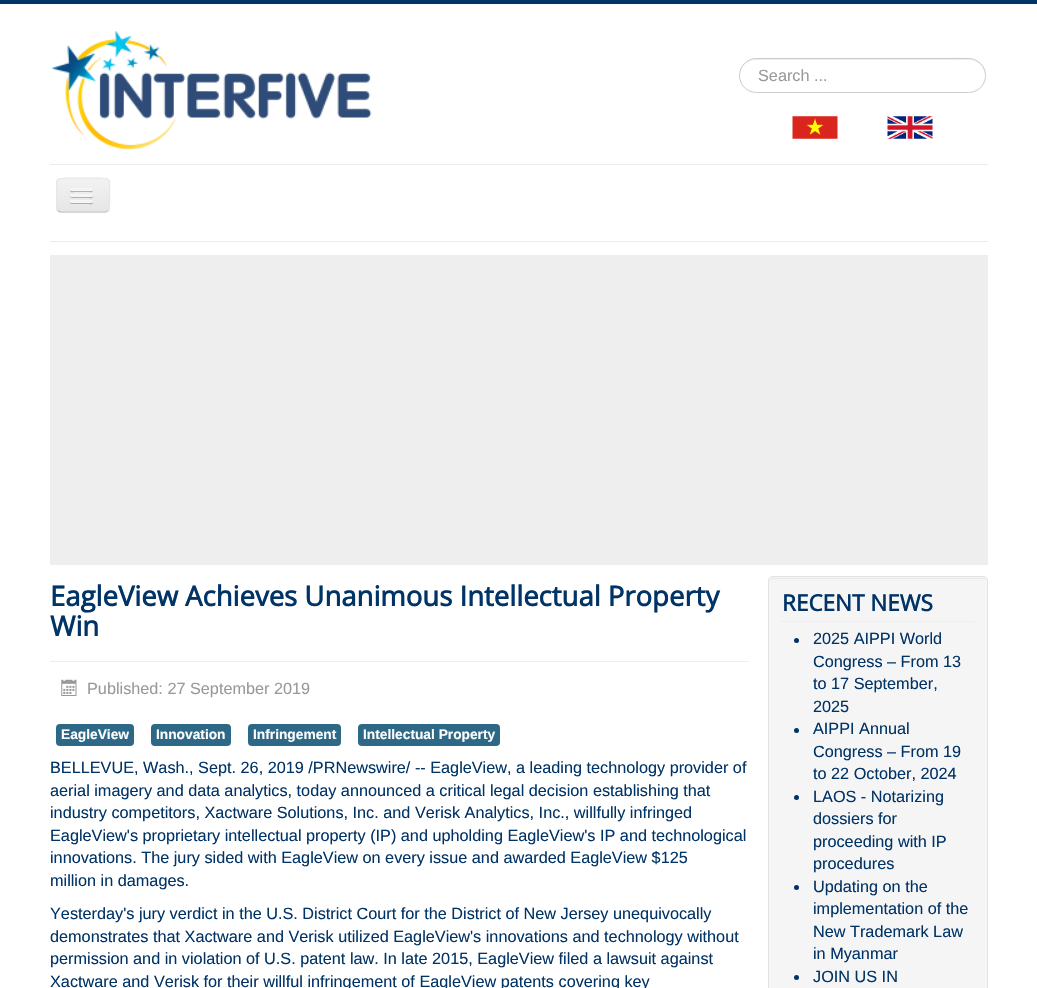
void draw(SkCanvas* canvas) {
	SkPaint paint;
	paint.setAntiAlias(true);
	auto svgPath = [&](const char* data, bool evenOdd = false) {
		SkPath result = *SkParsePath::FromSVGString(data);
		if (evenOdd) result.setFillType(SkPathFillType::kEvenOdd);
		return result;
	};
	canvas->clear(0xffffffff);
	paint.setColor(0xff003366);
	canvas->drawRect(SkRect::MakeXYWH(0, 0, 1037, 4), paint);
	canvas->drawImageRect(SkImages::DeferredFromEncodedData(SkData::MakeFromFileName("img1.png")), SkRect::MakeXYWH(51, 31, 321, 119), SkSamplingOptions());
	paint.setColor(0xffececec);
	canvas->drawPath(svgPath("M756 60H969C978 60 985 67 985 75C986 51 944 59 934 59H792C781 59 739 51 740 75C740 67 747 60 756 60Z"), paint);
	paint.setStroke(true);
	paint.setStrokeWidth(1);
	paint.setColor(0xffcccccc);
	canvas->drawRoundRect(SkRect::MakeXYWH(739.5, 58.5, 246, 34), 17, 17, paint);
	SkFont f1(fontMgr->matchFamilyStyle("Liberation Sans", SkFontStyle::Normal()), 16.25);
	f1.setSubpixel(true);
	paint.setStroke(false);
	paint.setColor(0xff999999);
	canvas->drawString("Search ...", 758, 81, f1, paint);
	canvas->drawImageRect(SkImages::DeferredFromEncodedData(SkData::MakeFromFileName("img2.png")), SkRect::MakeXYWH(792, 116, 46, 23), SkSamplingOptions());
	canvas->drawImageRect(SkImages::DeferredFromEncodedData(SkData::MakeFromFileName("img3.png")), SkRect::MakeXYWH(887, 116, 46, 23), SkSamplingOptions());
	paint.setColor(0xffececec);
	canvas->drawRect(SkRect::MakeXYWH(50, 164, 938, 1), paint);
	canvas->drawRect(SkRect::MakeXYWH(50, 241, 938, 1), paint);
	paint.setColor(0xffededed);
	canvas->drawRoundRect(SkRect::MakeXYWH(56, 178, 54, 35), 5, 5, paint);
	canvas->save();
	canvas->clipPath(svgPath("M61 178H105C108 178 110 180 110 183V208C110 211 108 213 105 213H61C58 213 56 211 56 208V183C56 180 58 178 61 178Z"), true);
	{
		const SkColor colors[] = {0xfff2f2f2, 0xffe6e6e6};
		const float stops[] = {0, 1};
		const SkPoint ends[] = {{83, 179}, {83, 211}};
		paint.setShader(SkGradientShader::MakeLinear(ends, colors, stops, 2, SkTileMode::kClamp));
		paint.setAlpha(255);
	}
	canvas->drawRect(SkRect::MakeXYWH(56, 179, 54, 32), paint);
	canvas->restore();
	paint.setStroke(true);
	paint.setStrokeWidth(1.2);
	paint.setShader(nullptr);
	paint.setColor(0xffbfbfbf);
	canvas->drawPath(svgPath("M108 210.5C107.5 211.5 106 212 105 212H61C60 212 59 211.5 58 210.5"), paint);
	paint.setColor(0xffe6e6e6);
	canvas->drawPath(svgPath("M58 210.5C55.5 208 57 198 57 195C57 179 53.5 178 68.5 178H97.5C112.5 178 109.5 179 109.5 195C109.5 198 110.5 208 108 210.5"), paint);
	paint.setStroke(false);
	paint.setColor(0xffb2b2b2);
	canvas->drawPath(svgPath("M70.5 189.5L70 191C70.5 193 74 192 75 192H88C89.5 192 93 193 93 190.5L92.5 189.5L91.5 190C89.5 190.5 71 190.5 70.5 189.5Z"), paint);
	paint.setColor(0xfff5f5f5);
	canvas->drawRoundRect(SkRect::MakeXYWH(70, 188, 23, 3), 1.5, 1.5, paint);
	paint.setColor(0xffb0b0b0);
	canvas->drawPath(svgPath("M70 195.5C68.5 198.5 74.5 198 75 198H88C89 198 92.5 199 93 197C93 196.5 93 195.5 92.5 195.5L91.5 196H71Z"), paint);
	paint.setColor(0xfff5f5f5);
	canvas->drawRoundRect(SkRect::MakeXYWH(70, 194, 23, 3), 1.5, 1.5, paint);
	paint.setColor(0xffafafaf);
	canvas->drawPath(svgPath("M70 202C69 204.5 74 204 75 204H88C89 204 92.5 205 93 203C93 202.5 93 201.5 92.5 201.5C92.5 202 92 202.5 91 202.5H71C71 202.5 70.5 202 70 202Z"), paint);
	paint.setColor(0xfff5f5f5);
	canvas->drawRoundRect(SkRect::MakeXYWH(70, 200, 23, 3), 1.5, 1.5, paint);
	paint.setColor(0xffeeeeee);
	canvas->drawRect(SkRect::MakeXYWH(50, 255, 938, 310), paint);
	canvas->drawRect(SkRect::MakeXYWH(50, 661, 699, 1), paint);
	SkFont f2(fontMgr->matchFamilyStyle("Open Sans", SkFontStyle::Bold()), 27.5);
	f2.setSubpixel(true);
	paint.setColor(0xff003366);
	canvas->drawString("EagleView Achieves Unanimous Intellectual Property", 50, 606, f2, paint);
	canvas->drawString("Win", 50, 636, f2, paint);
	canvas->drawImageRect(SkImages::DeferredFromEncodedData(SkData::MakeFromFileName("img4.png")), SkRect::MakeXYWH(61, 679, 16, 17), SkSamplingOptions());
	paint.setColor(0xff999999);
	canvas->drawString("Published: 27 September 2019", 87, 694, f1, paint);
	paint.setColor(0xff2d6987);
	canvas->drawRoundRect(SkRect::MakeXYWH(56, 724, 78, 22), 4, 4, paint);
	SkFont f3(fontMgr->matchFamilyStyle("Liberation Sans", SkFontStyle::Bold()), 13.75);
	f3.setSubpixel(true);
	paint.setColor(0xffffffff);
	canvas->drawString("EagleView", 61, 739, f3, paint);
	paint.setColor(0xff2d6987);
	canvas->drawRoundRect(SkRect::MakeXYWH(151, 724, 80, 22), 4, 4, paint);
	paint.setColor(0xffffffff);
	canvas->drawString("Innovation", 156, 739, f3, paint);
	paint.setColor(0xff2d6987);
	canvas->drawRoundRect(SkRect::MakeXYWH(248, 724, 93, 22), 4, 4, paint);
	paint.setColor(0xffffffff);
	canvas->drawString("Infringement", 253, 739, f3, paint);
	paint.setColor(0xff2d6987);
	canvas->drawRoundRect(SkRect::MakeXYWH(358, 724, 142, 22), 4, 4, paint);
	paint.setColor(0xffffffff);
	canvas->drawString("Intellectual Property", 363, 739, f3, paint);
	paint.setColor(0xff003366);
	canvas->drawString("BELLEVUE, Wash., Sept. 26, 2019 /PRNewswire/ -- EagleView, a leading technology provider of", 50, 773, f1, paint);
	canvas->drawString("aerial imagery and data analytics, today announced a critical legal decision establishing that", 50, 796, f1, paint);
	canvas->drawString("industry competitors, Xactware Solutions, Inc. and Verisk Analytics, Inc., willfully infringed", 50, 818, f1, paint);
	canvas->drawString("EagleView's proprietary intellectual property (IP) and upholding EagleView's IP and technological", 50, 841, f1, paint);
	canvas->drawString("innovations. The jury sided with EagleView on every issue and awarded EagleView $125", 50, 863, f1, paint);
	canvas->drawString("million in damages.", 50, 886, f1, paint);
	canvas->drawString("Yesterday's jury verdict in the U.S. District Court for the District of New Jersey unequivocally", 50, 919, f1, paint);
	canvas->drawString("demonstrates that Xactware and Verisk utilized EagleView's innovations and technology without", 50, 942, f1, paint);
	canvas->drawString("permission and in violation of U.S. patent law. In late 2015, EagleView filed a lawsuit against", 50, 964, f1, paint);
	canvas->drawString("Xactware and Verisk for their willful infringement of EagleView patents covering key", 50, 987, f1, paint);
	paint.setColor(0xfff5f5f5);
	canvas->drawRoundRect(SkRect::MakeXYWH(768, 576, 220, 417), 5, 5, paint);
	paint.setColor(0xffe9e9e9);
	canvas->drawPath(svgPath("M772 579H984L986 580C985 579 984 578 982 578H773C772 578 770 579 770 580Z"), paint);
	paint.setStroke(true);
	paint.setStrokeWidth(1);
	paint.setColor(0xffe3e3e3);
	canvas->drawRoundRect(SkRect::MakeXYWH(768.5, 576.5, 219, 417), 4.5, 4.5, paint);
	paint.setStroke(false);
	paint.setColor(0xffeeeeee);
	canvas->drawRect(SkRect::MakeXYWH(781, 621, 193, 1), paint);
	SkFont f4(fontMgr->matchFamilyStyle("Open Sans", SkFontStyle::Bold()), 22.5);
	f4.setSubpixel(true);
	paint.setColor(0xff003366);
	canvas->drawString("RECENT NEWS", 782, 611, f4, paint);
	canvas->drawCircle(796.5, 640.5, 2.5, paint);
	canvas->drawString("2025 AIPPI World", 813, 644, f1, paint);
	canvas->drawString("Congress – From 13", 813, 667, f1, paint);
	canvas->drawString("to 17 September,", 813, 689, f1, paint);
	canvas->drawString("2025", 813, 712, f1, paint);
	canvas->drawCircle(796.5, 730.5, 2.5, paint);
	canvas->drawString("AIPPI Annual", 813, 734, f1, paint);
	canvas->drawString("Congress – From 19", 813, 757, f1, paint);
	canvas->drawString("to 22 October, 2024", 813, 779, f1, paint);
	canvas->drawCircle(796.5, 797.5, 2.5, paint);
	canvas->drawString("LAOS - Notarizing", 813, 802, f1, paint);
	canvas->drawString("dossiers for", 813, 824, f1, paint);
	canvas->drawString("proceeding with IP", 813, 847, f1, paint);
	canvas->drawString("procedures", 813, 869, f1, paint);
	canvas->drawCircle(796.5, 887.5, 2.5, paint);
	canvas->drawString("Updating on the", 813, 892, f1, paint);
	canvas->drawString("implementation of the", 813, 914, f1, paint);
	canvas->drawString("New Trademark Law", 813, 937, f1, paint);
	canvas->drawString("in Myanmar", 813, 959, f1, paint);
	canvas->drawCircle(796.5, 977.5, 2.5, paint);
	canvas->drawString("JOIN US IN", 813, 982, f1, paint);
}
